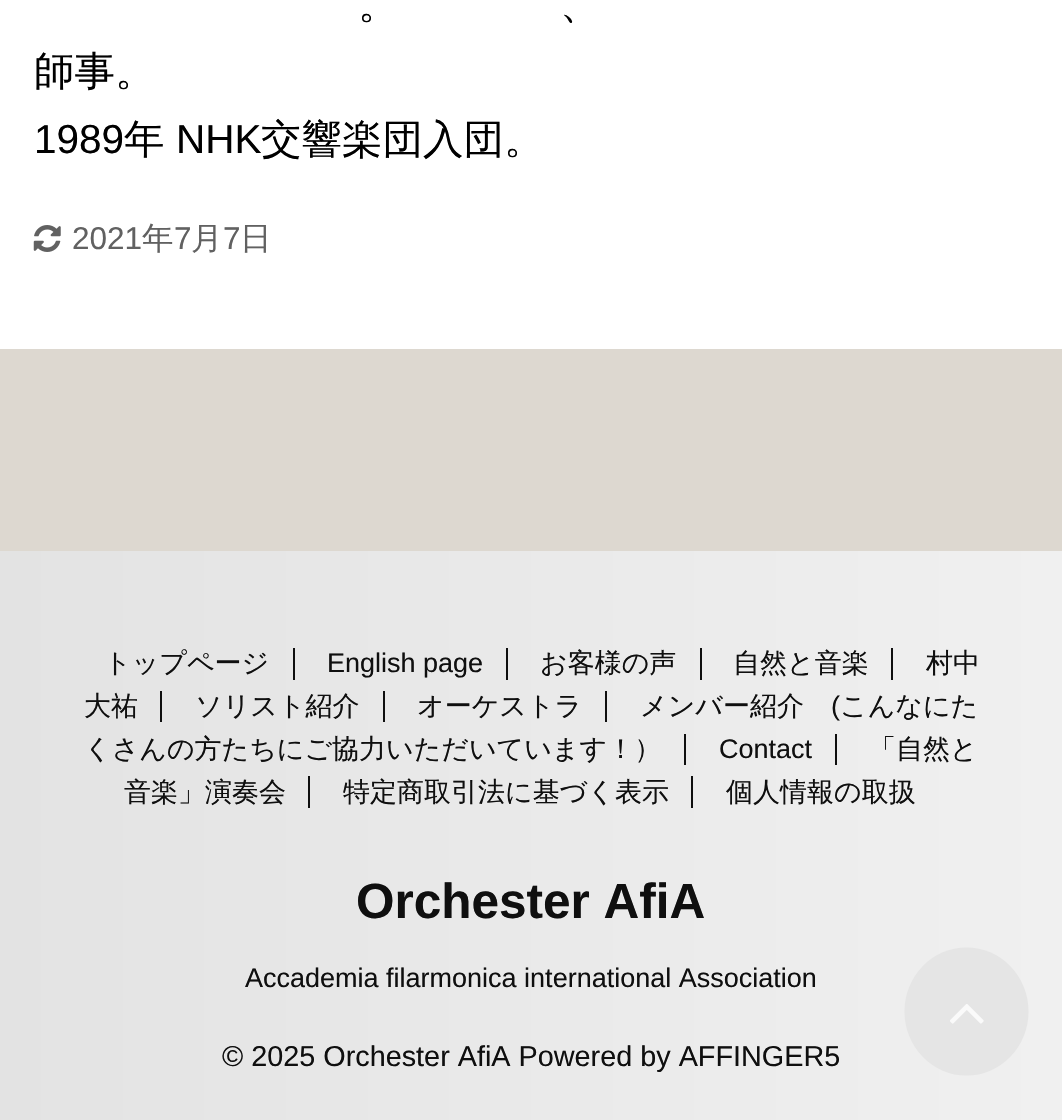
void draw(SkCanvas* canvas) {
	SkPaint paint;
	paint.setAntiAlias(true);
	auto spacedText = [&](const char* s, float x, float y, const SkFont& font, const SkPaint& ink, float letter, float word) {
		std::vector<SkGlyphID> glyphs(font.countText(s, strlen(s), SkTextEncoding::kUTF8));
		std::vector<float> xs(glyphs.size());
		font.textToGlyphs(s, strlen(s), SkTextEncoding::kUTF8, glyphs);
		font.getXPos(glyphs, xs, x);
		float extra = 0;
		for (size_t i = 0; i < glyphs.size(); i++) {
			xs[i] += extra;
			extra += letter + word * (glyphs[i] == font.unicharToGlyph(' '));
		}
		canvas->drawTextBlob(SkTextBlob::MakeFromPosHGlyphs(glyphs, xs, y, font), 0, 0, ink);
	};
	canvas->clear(0xffddd8d0);
	paint.setColor(0xffffffff);
	canvas->drawRect(SkRect::MakeXYWH(0, 0, 1062, 349), paint);
	SkFont f1(fontMgr->matchFamilyStyle("WenQuanYi Zen Hei", SkFontStyle(500, SkFontStyle::kNormal_Width, SkFontStyle::kUpright_Slant)), 40.5);
	f1.setSubpixel(true);
	paint.setColor(0xff000000);
	spacedText("。", 358, 18, f1, paint, 0, -1);
	spacedText("、", 560, 18, f1, paint, 0, -1);
	canvas->drawString("師事。", 34, 85, f1, paint);
	SkFont f2(fontMgr->matchFamilyStyle("Liberation Sans", SkFontStyle::Normal()), 40.5);
	f2.setSubpixel(true);
	canvas->drawString("1989", 34, 153, f2, paint);
	canvas->drawString("年", 124, 153, f1, paint);
	canvas->drawString("NHK", 176, 153, f2, paint);
	canvas->drawString("交響楽団入団。", 261, 153, f1, paint);
	canvas->drawImageRect(SkImages::DeferredFromEncodedData(SkData::MakeFromFileName("img1.png")), SkRect::MakeXYWH(33, 225, 28, 27), SkSamplingOptions());
	SkFont f3(fontMgr->matchFamilyStyle("Liberation Sans", SkFontStyle::Normal()), 31.5);
	f3.setSubpixel(true);
	paint.setColor(0xff616161);
	canvas->drawString("2021", 72, 249, f3, paint);
	SkFont f4(fontMgr->matchFamilyStyle("WenQuanYi Zen Hei", SkFontStyle(500, SkFontStyle::kNormal_Width, SkFontStyle::kUpright_Slant)), 31.5);
	f4.setSubpixel(true);
	canvas->drawString("年", 142, 249, f4, paint);
	canvas->drawString("7", 174, 249, f3, paint);
	canvas->drawString("月", 191, 249, f4, paint);
	canvas->drawString("7", 223, 249, f3, paint);
	canvas->drawString("日", 240, 249, f4, paint);
	{
		const SkColor colors[] = {0xfff0f0f0, 0xffe3e3e3};
		const float stops[] = {0, 1};
		const SkPoint ends[] = {{1062, 836}, {0, 836}};
		paint.setShader(SkGradientShader::MakeLinear(ends, colors, stops, 2, SkTileMode::kClamp));
		paint.setAlpha(255);
	}
	canvas->drawRect(SkRect::MakeXYWH(0, 551, 1062, 569), paint);
	SkFont f5(fontMgr->matchFamilyStyle("WenQuanYi Zen Hei", SkFontStyle(500, SkFontStyle::kNormal_Width, SkFontStyle::kUpright_Slant)), 27);
	f5.setSubpixel(true);
	paint.setShader(nullptr);
	paint.setColor(0xff0f0f0f);
	canvas->drawString("トップページ", 104, 672, f5, paint);
	canvas->drawRect(SkRect::MakeXYWH(293, 648, 2, 32), paint);
	SkFont f6(fontMgr->matchFamilyStyle("Liberation Sans", SkFontStyle::Normal()), 27);
	f6.setSubpixel(true);
	canvas->drawString("English page", 327, 672, f6, paint);
	canvas->drawRect(SkRect::MakeXYWH(506, 648, 2, 32), paint);
	canvas->drawString("お客様の声", 540, 672, f5, paint);
	canvas->drawRect(SkRect::MakeXYWH(700, 648, 2, 32), paint);
	canvas->drawString("自然と音楽", 733, 672, f5, paint);
	canvas->drawRect(SkRect::MakeXYWH(891, 648, 2, 32), paint);
	canvas->drawString("村中", 926, 672, f5, paint);
	canvas->drawString("大祐", 84, 715, f5, paint);
	canvas->drawRect(SkRect::MakeXYWH(160, 691, 2, 31), paint);
	canvas->drawString("ソリスト紹介", 195, 715, f5, paint);
	canvas->drawRect(SkRect::MakeXYWH(383, 691, 2, 31), paint);
	canvas->drawString("オーケストラ", 417, 715, f5, paint);
	canvas->drawRect(SkRect::MakeXYWH(605, 691, 2, 31), paint);
	canvas->drawString("メンバー紹介", 640, 715, f5, paint);
	canvas->drawString("(", 831, 715, f6, paint);
	canvas->drawString("こんなにた", 840, 715, f5, paint);
	canvas->drawString("くさんの方たちにご協力いただいています！）", 84, 758, f5, paint);
	canvas->drawRect(SkRect::MakeXYWH(684, 734, 2, 31), paint);
	canvas->drawString("Contact", 719, 758, f6, paint);
	canvas->drawRect(SkRect::MakeXYWH(835, 734, 2, 31), paint);
	canvas->drawString("「自然と", 869, 758, f5, paint);
	canvas->drawString("音楽」演奏会", 124, 801, f5, paint);
	canvas->drawRect(SkRect::MakeXYWH(308, 776, 2, 32), paint);
	canvas->drawString("特定商取引法に基づく表示", 343, 801, f5, paint);
	canvas->drawRect(SkRect::MakeXYWH(691, 776, 2, 32), paint);
	canvas->drawString("個人情報の取扱", 726, 801, f5, paint);
	SkFont f7(fontMgr->matchFamilyStyle("Liberation Sans", SkFontStyle::Bold()), 49.5);
	f7.setSubpixel(true);
	canvas->drawString("Orchester AfiA", 356, 918, f7, paint);
	canvas->drawString("Accademia filarmonica international Association", 245, 987, f6, paint);
	SkFont f8(fontMgr->matchFamilyStyle("Liberation Sans", SkFontStyle::Normal()), 28.8);
	f8.setSubpixel(true);
	canvas->drawString("© 2025 Orchester AfiA Powered by AFFINGER5", 222, 1066, f8, paint);
	paint.setColor(0xffe5e5e5);
	canvas->drawOval(SkRect::MakeXYWH(904.5, 947.5, 124, 128), paint);
	canvas->drawImageRect(SkImages::DeferredFromEncodedData(SkData::MakeFromFileName("img2.png")), SkRect::MakeXYWH(950, 1004, 34, 20), SkSamplingOptions());
}
